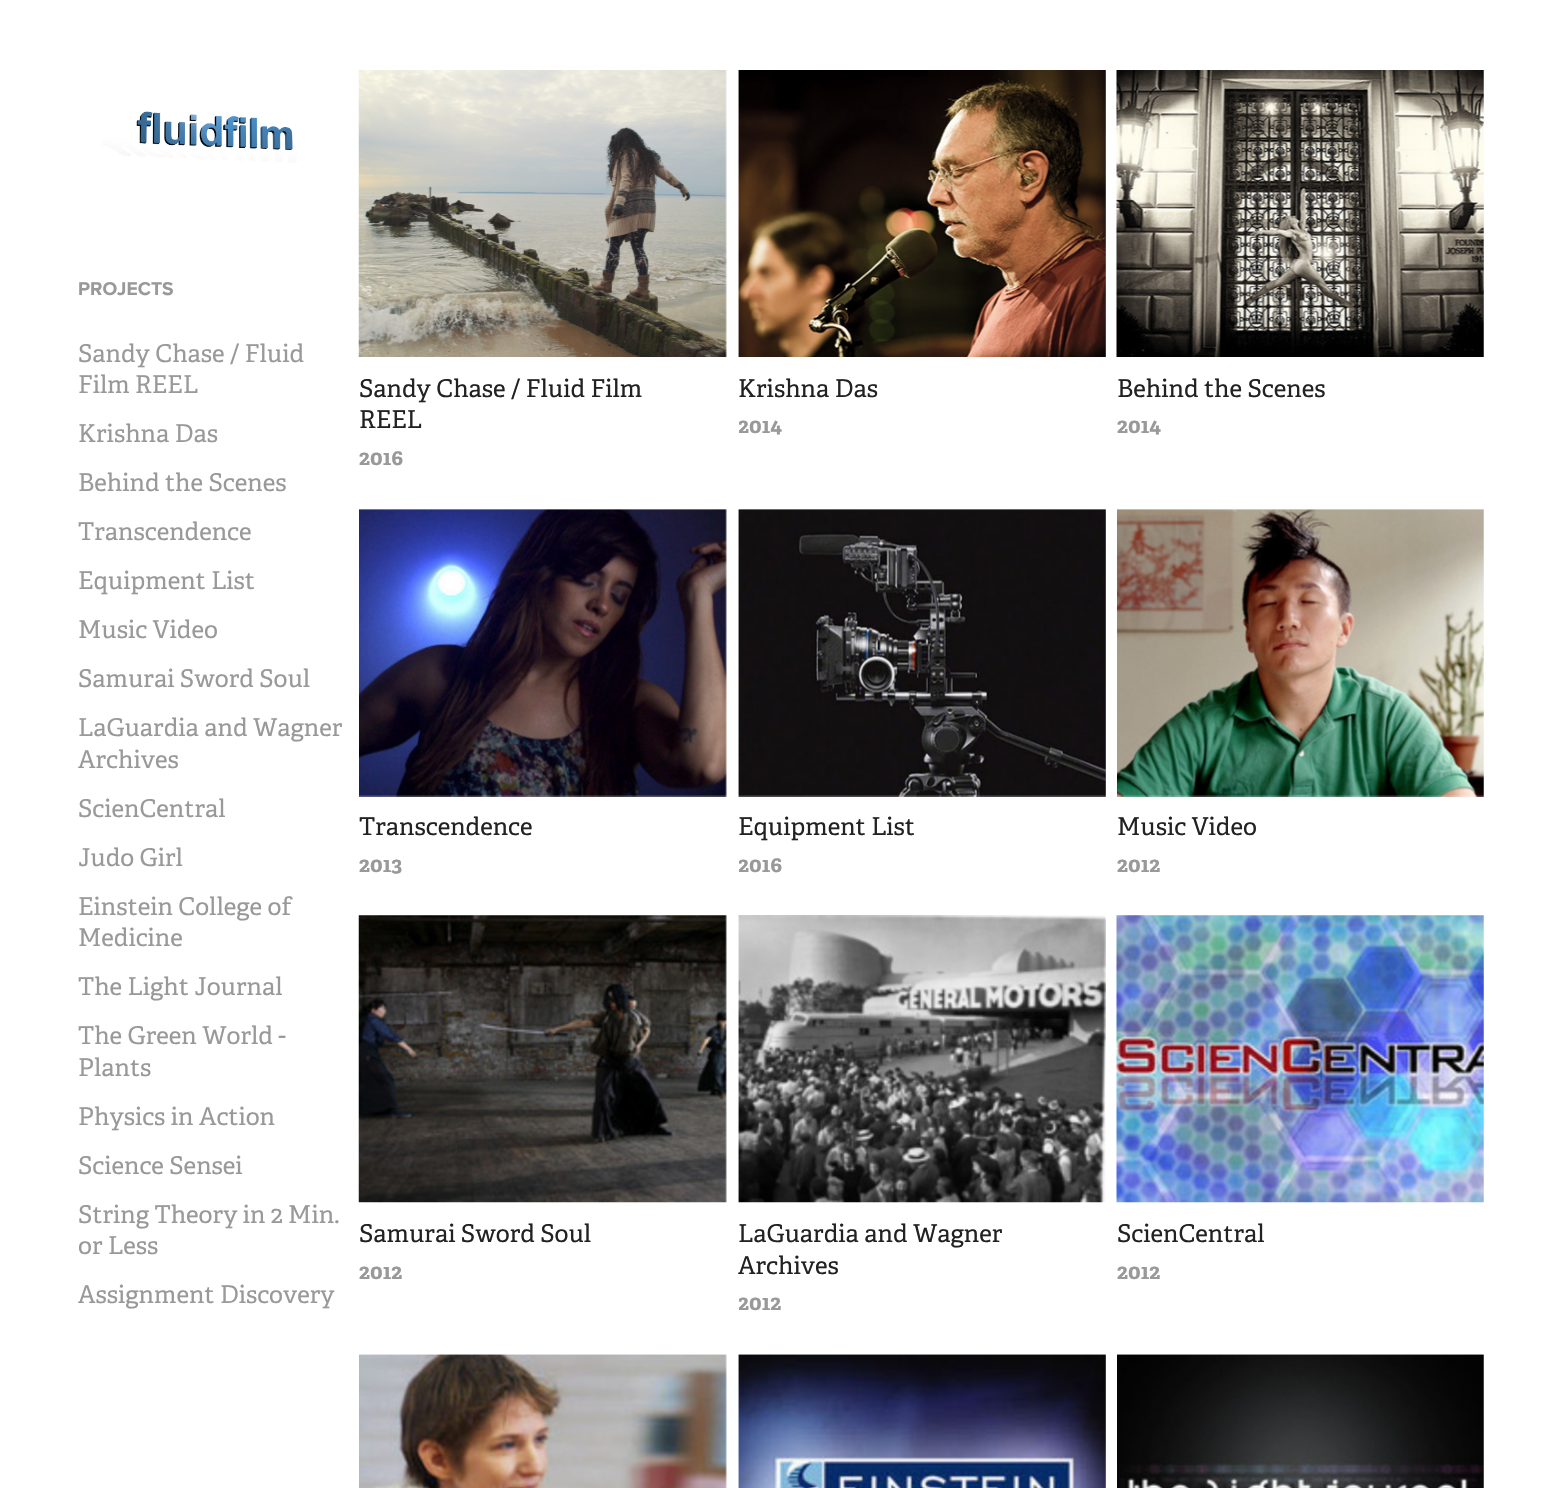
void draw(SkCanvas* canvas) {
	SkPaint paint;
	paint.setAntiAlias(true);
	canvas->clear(0xffffffff);
	canvas->drawImageRect(SkImages::DeferredFromEncodedData(SkData::MakeFromFileName("img1.png")), SkRect::MakeXYWH(102, 111, 195, 52), SkSamplingOptions());
	SkFont f1(fontMgr->matchFamilyStyle("Proxima Nova", SkFontStyle::Bold()), 19.25);
	f1.setSubpixel(true);
	paint.setColor(0xff999999);
	canvas->drawString("PROJECTS", 78, 295, f1, paint);
	SkFont f2(fontMgr->matchFamilyStyle("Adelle", SkFontStyle::Normal()), 24.5);
	f2.setSubpixel(true);
	canvas->drawString("Sandy Chase / Fluid", 78, 362, f2, paint);
	canvas->drawString("Film REEL", 78, 393, f2, paint);
	canvas->drawString("Krishna Das", 78, 442, f2, paint);
	canvas->drawString("Behind the Scenes", 78, 491, f2, paint);
	canvas->drawString("Transcendence", 78, 540, f2, paint);
	canvas->drawString("Equipment List", 78, 589, f2, paint);
	canvas->drawString("Music Video", 78, 638, f2, paint);
	canvas->drawString("Samurai Sword Soul", 78, 687, f2, paint);
	canvas->drawString("LaGuardia and Wagner", 78, 736, f2, paint);
	canvas->drawString("Archives", 78, 768, f2, paint);
	canvas->drawString("ScienCentral", 78, 817, f2, paint);
	canvas->drawString("Judo Girl", 78, 866, f2, paint);
	canvas->drawString("Einstein College of", 78, 915, f2, paint);
	canvas->drawString("Medicine", 78, 946, f2, paint);
	canvas->drawString("The Light Journal", 78, 995, f2, paint);
	canvas->drawString("The Green World -", 78, 1044, f2, paint);
	canvas->drawString("Plants", 78, 1076, f2, paint);
	canvas->drawString("Physics in Action", 78, 1125, f2, paint);
	canvas->drawString("Science Sensei", 78, 1174, f2, paint);
	canvas->drawString("String Theory in 2 Min.", 78, 1223, f2, paint);
	canvas->drawString("or Less", 78, 1254, f2, paint);
	canvas->drawString("Assignment Discovery", 78, 1303, f2, paint);
	canvas->drawImageRect(SkImages::DeferredFromEncodedData(SkData::MakeFromFileName("img2.png")), SkRect::MakeXYWH(358, 70, 369, 287), SkSamplingOptions());
	paint.setColor(0xff222222);
	canvas->drawString("Sandy Chase / Fluid Film", 359, 397, f2, paint);
	canvas->drawString("REEL", 359, 428, f2, paint);
	SkFont f3(fontMgr->matchFamilyStyle("Adelle", SkFontStyle::Bold()), 21);
	f3.setSubpixel(true);
	paint.setColor(0xff999999);
	canvas->drawString("2016", 359, 465, f3, paint);
	canvas->drawImageRect(SkImages::DeferredFromEncodedData(SkData::MakeFromFileName("img3.png")), SkRect::MakeXYWH(738, 70, 368, 287), SkSamplingOptions());
	paint.setColor(0xff222222);
	canvas->drawString("Krishna Das", 738, 397, f2, paint);
	canvas->save();
	canvas->clipRect(SkRect::MakeXYWH(739, 373, 367, 70));
	paint.setColor(0xff999999);
	canvas->drawString("2014", 738, 433, f3, paint);
	canvas->restore();
	canvas->drawImageRect(SkImages::DeferredFromEncodedData(SkData::MakeFromFileName("img4.png")), SkRect::MakeXYWH(1116, 70, 368, 287), SkSamplingOptions());
	paint.setColor(0xff222222);
	canvas->drawString("Behind the Scenes", 1117, 397, f2, paint);
	paint.setColor(0xff999999);
	canvas->drawString("2014", 1117, 433, f3, paint);
	canvas->drawImageRect(SkImages::DeferredFromEncodedData(SkData::MakeFromFileName("img5.png")), SkRect::MakeXYWH(359, 509, 368, 288), SkSamplingOptions());
	paint.setColor(0xff222222);
	canvas->drawString("Transcendence", 359, 835, f2, paint);
	paint.setColor(0xff999999);
	canvas->drawString("2013", 359, 872, f3, paint);
	canvas->drawImageRect(SkImages::DeferredFromEncodedData(SkData::MakeFromFileName("img6.png")), SkRect::MakeXYWH(738, 509, 368, 288), SkSamplingOptions());
	paint.setColor(0xff222222);
	canvas->drawString("Equipment List", 738, 835, f2, paint);
	canvas->save();
	canvas->clipRect(SkRect::MakeXYWH(739, 810, 367, 70));
	paint.setColor(0xff999999);
	canvas->drawString("2016", 738, 872, f3, paint);
	canvas->restore();
	canvas->drawImageRect(SkImages::DeferredFromEncodedData(SkData::MakeFromFileName("img7.png")), SkRect::MakeXYWH(1117, 509, 367, 288), SkSamplingOptions());
	paint.setColor(0xff222222);
	canvas->drawString("Music Video", 1117, 835, f2, paint);
	paint.setColor(0xff999999);
	canvas->drawString("2012", 1117, 872, f3, paint);
	canvas->drawImageRect(SkImages::DeferredFromEncodedData(SkData::MakeFromFileName("img8.png")), SkRect::MakeXYWH(358, 915, 369, 288), SkSamplingOptions());
	paint.setColor(0xff222222);
	canvas->drawString("Samurai Sword Soul", 359, 1242, f2, paint);
	paint.setColor(0xff999999);
	canvas->drawString("2012", 359, 1279, f3, paint);
	canvas->drawImageRect(SkImages::DeferredFromEncodedData(SkData::MakeFromFileName("img9.png")), SkRect::MakeXYWH(738, 915, 368, 288), SkSamplingOptions());
	paint.setColor(0xff222222);
	canvas->drawString("LaGuardia and Wagner", 738, 1242, f2, paint);
	canvas->drawString("Archives", 738, 1274, f2, paint);
	canvas->save();
	canvas->clipRect(SkRect::MakeXYWH(739, 1218, 367, 102));
	paint.setColor(0xff999999);
	canvas->drawString("2012", 738, 1310, f3, paint);
	canvas->restore();
	canvas->drawImageRect(SkImages::DeferredFromEncodedData(SkData::MakeFromFileName("img10.png")), SkRect::MakeXYWH(1116, 915, 368, 288), SkSamplingOptions());
	paint.setColor(0xff222222);
	canvas->drawString("ScienCentral", 1117, 1242, f2, paint);
	paint.setColor(0xff999999);
	canvas->drawString("2012", 1117, 1279, f3, paint);
	canvas->drawImageRect(SkImages::DeferredFromEncodedData(SkData::MakeFromFileName("img11.png")), SkRect::MakeXYWH(359, 1354, 368, 134), SkSamplingOptions());
	canvas->drawImageRect(SkImages::DeferredFromEncodedData(SkData::MakeFromFileName("img12.png")), SkRect::MakeXYWH(738, 1354, 368, 134), SkSamplingOptions());
	canvas->drawImageRect(SkImages::DeferredFromEncodedData(SkData::MakeFromFileName("img13.png")), SkRect::MakeXYWH(1117, 1354, 367, 134), SkSamplingOptions());
}
